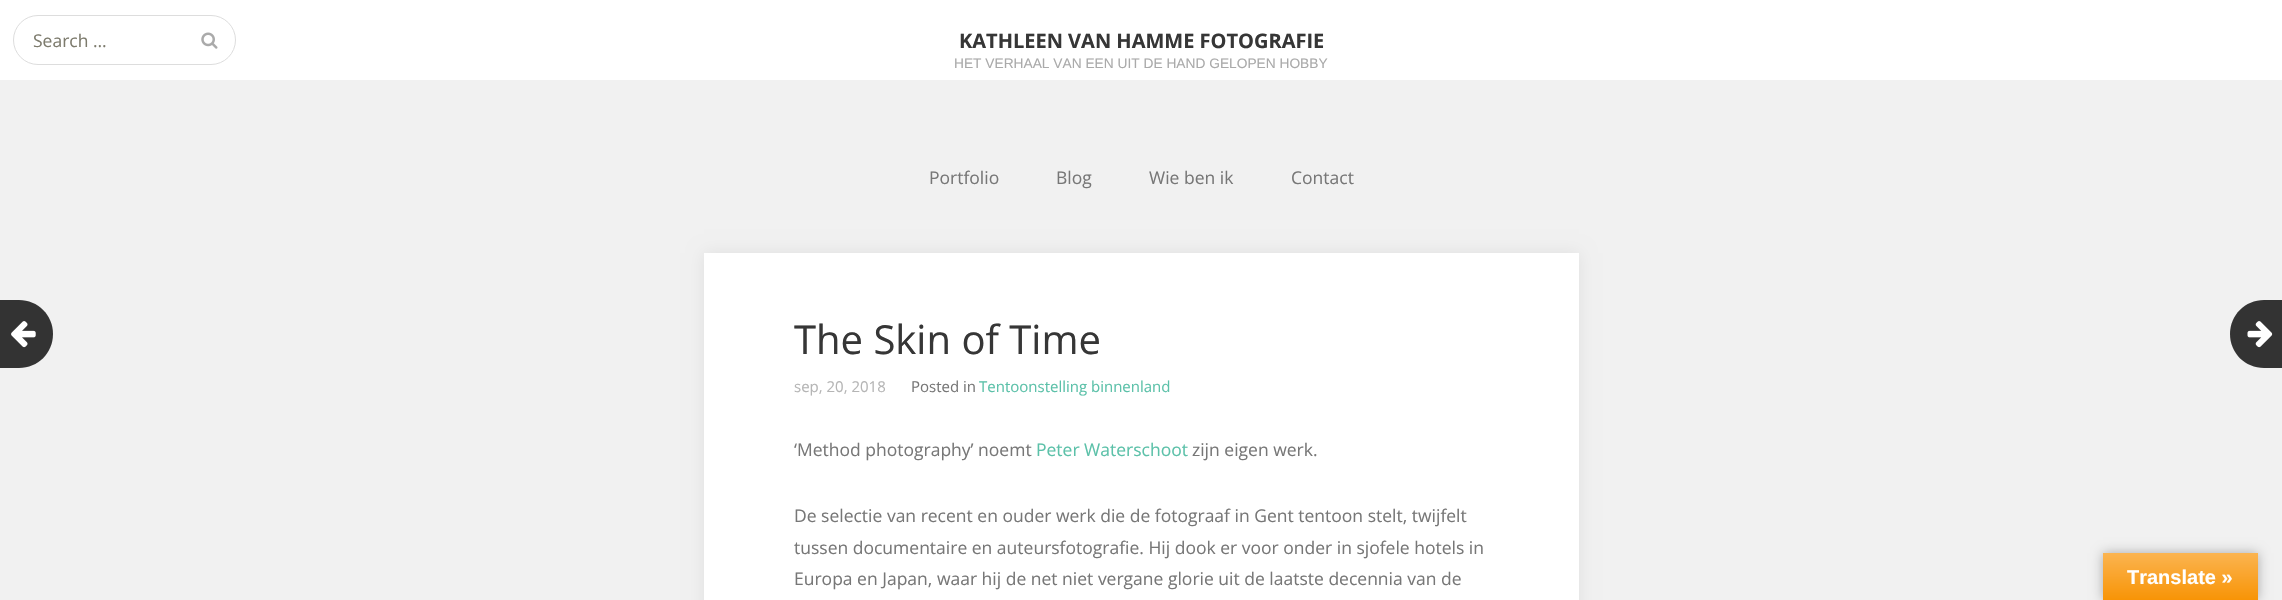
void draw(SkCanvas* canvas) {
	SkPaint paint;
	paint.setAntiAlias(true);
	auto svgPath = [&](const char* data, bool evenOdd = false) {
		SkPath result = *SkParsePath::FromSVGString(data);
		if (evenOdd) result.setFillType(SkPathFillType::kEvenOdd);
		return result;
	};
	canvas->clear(0xffffffff);
	paint.setStroke(true);
	paint.setStrokeWidth(1);
	paint.setColor(0xffdddddd);
	canvas->drawRoundRect(SkRect::MakeXYWH(13.5, 15.5, 222, 49), 24.5, 24.5, paint);
	SkFont f1(fontMgr->matchFamilyStyle("Open Sans", SkFontStyle::Normal()), 17.5);
	f1.setSubpixel(true);
	paint.setStroke(false);
	paint.setColor(0xff7d7b6d);
	canvas->drawString("Search …", 33, 47, f1, paint);
	canvas->drawImageRect(SkImages::DeferredFromEncodedData(SkData::MakeFromFileName("img1.png")), SkRect::MakeXYWH(201, 32, 17, 17), SkSamplingOptions());
	SkFont f2(fontMgr->matchFamilyStyle("Open Sans", SkFontStyle::Bold()), 20);
	f2.setSubpixel(true);
	paint.setColor(0xff363636);
	canvas->drawString("KATHLEEN VAN HAMME FOTOGRAFIE", 959, 48, f2, paint);
	SkFont f3(fontMgr->matchFamilyStyle("Liberation Sans", SkFontStyle::Normal()), 13.75);
	f3.setSubpixel(true);
	paint.setColor(0xffaaaaaa);
	canvas->drawString("HET VERHAAL VAN EEN UIT DE HAND GELOPEN HOBBY", 954, 68, f3, paint);
	paint.setColor(0xfff1f1f1);
	canvas->drawRect(SkRect::MakeXYWH(0, 80, 2282, 520), paint);
	paint.setColor(0xff777777);
	canvas->drawString("Portfolio", 929, 184, f1, paint);
	canvas->drawString("Blog", 1056, 184, f1, paint);
	canvas->drawString("Wie ben ik", 1149, 184, f1, paint);
	canvas->drawString("Contact", 1291, 184, f1, paint);
	paint.setColor(0xff333333);
	canvas->drawPath(svgPath("M-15 300H19C38 300 53 315 53 334C53 353 38 368 19 368H-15Z"), paint);
	canvas->drawImageRect(SkImages::DeferredFromEncodedData(SkData::MakeFromFileName("img2.png")), SkRect::MakeXYWH(11, 321, 25, 27), SkSamplingOptions());
	paint.setColor(0x12000000);
	paint.setMaskFilter(SkMaskFilter::MakeBlur(kNormal_SkBlurStyle, 8));
	canvas->drawRect(SkRect::MakeXYWH(704, 253, 875, 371), paint);
	paint.setMaskFilter(nullptr);
	paint.setColor(0xffffffff);
	canvas->drawRect(SkRect::MakeXYWH(704, 253, 875, 347), paint);
	SkFont f4(fontMgr->matchFamilyStyle("Open Sans", SkFontStyle::Normal()), 40);
	f4.setSubpixel(true);
	paint.setColor(0xff363636);
	canvas->drawString("The Skin of Time", 794, 354, f4, paint);
	SkFont f5(fontMgr->matchFamilyStyle("Open Sans", SkFontStyle::Normal()), 15);
	f5.setSubpixel(true);
	paint.setColor(0xffb5b5b5);
	canvas->drawString("sep, 20, 2018", 794, 392, f5, paint);
	paint.setColor(0xff777777);
	canvas->drawString("Posted in", 911, 392, f5, paint);
	paint.setColor(0xff5cc1a9);
	canvas->drawString("Tentoonstelling binnenland", 979, 392, f5, paint);
	paint.setColor(0xff777777);
	canvas->drawString("‘Method photography’ noemt", 794, 456, f1, paint);
	paint.setColor(0xff5cc1a9);
	canvas->drawString("Peter Waterschoot", 1036, 456, f1, paint);
	paint.setColor(0xff777777);
	canvas->drawString("zijn eigen werk.", 1192, 456, f1, paint);
	canvas->drawString("De selectie van recent en ouder werk die de fotograaf in Gent tentoon stelt, twijfelt", 794, 522, f1, paint);
	canvas->drawString("tussen documentaire en auteursfotografie. Hij dook er voor onder in sjofele hotels in", 794, 554, f1, paint);
	canvas->drawString("Europa en Japan, waar hij de net niet vergane glorie uit de laatste decennia van de", 794, 585, f1, paint);
	paint.setColor(0xff333333);
	canvas->drawPath(svgPath("M2264 300H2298V368H2264C2245 368 2230 353 2230 334C2230 315 2245 300 2264 300Z"), paint);
	canvas->drawImageRect(SkImages::DeferredFromEncodedData(SkData::MakeFromFileName("img3.png")), SkRect::MakeXYWH(2247, 321, 26, 27), SkSamplingOptions());
	paint.setColor(0x4d000000);
	paint.setMaskFilter(SkMaskFilter::MakeBlur(kNormal_SkBlurStyle, 5.5));
	canvas->drawRect(SkRect::MakeXYWH(2103, 553, 155, 47), paint);
	paint.setMaskFilter(nullptr);
	{
		const SkColor colors[] = {0xfffbb450, 0xfff89406};
		const float stops[] = {0, 1};
		const SkPoint ends[] = {{2180, 553}, {2180, 600}};
		paint.setShader(SkGradientShader::MakeLinear(ends, colors, stops, 2, SkTileMode::kClamp));
		paint.setAlpha(255);
	}
	canvas->drawRect(SkRect::MakeXYWH(2103, 553, 155, 47), paint);
	SkFont f6(fontMgr->matchFamilyStyle("Liberation Sans", SkFontStyle::Bold()), 20);
	f6.setSubpixel(true);
	paint.setShader(nullptr);
	paint.setColor(0xffffffff);
	canvas->drawString("Translate »", 2127, 584, f6, paint);
}
